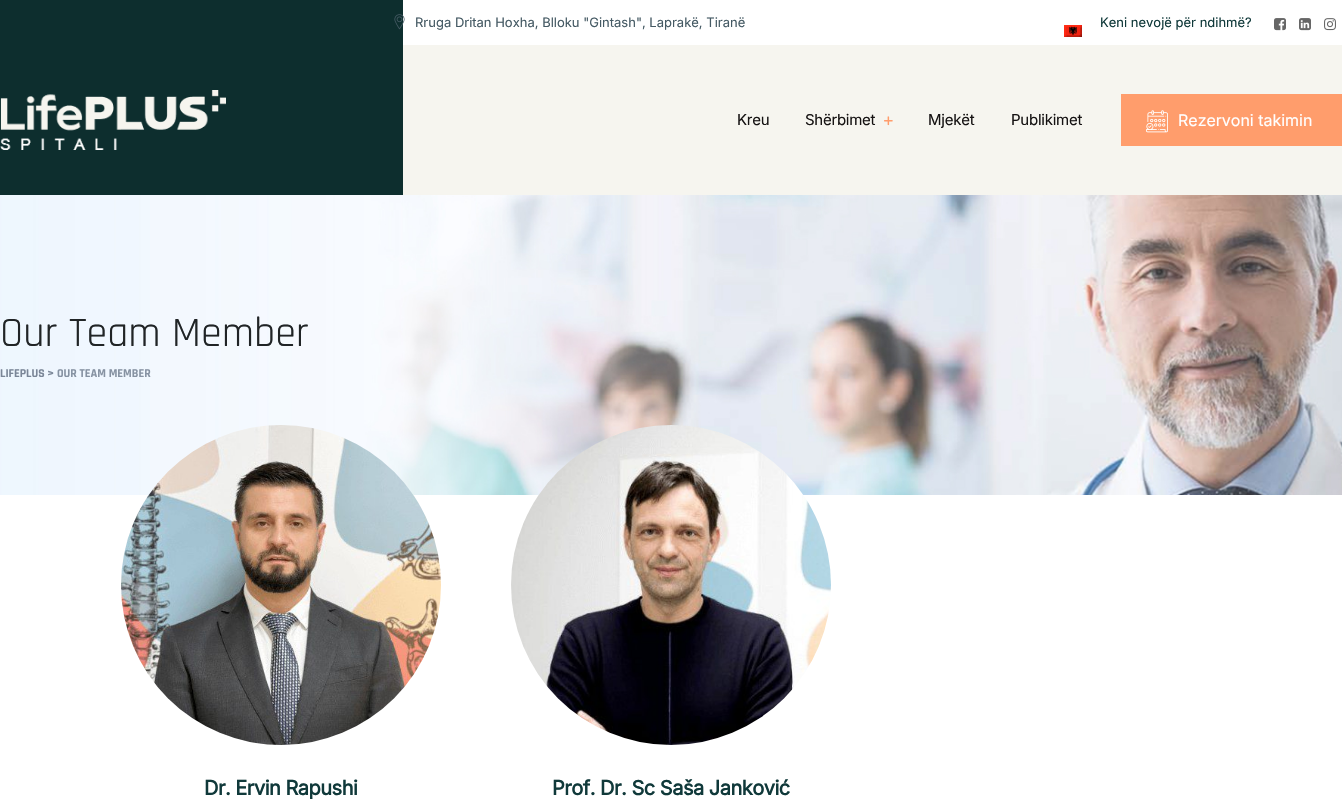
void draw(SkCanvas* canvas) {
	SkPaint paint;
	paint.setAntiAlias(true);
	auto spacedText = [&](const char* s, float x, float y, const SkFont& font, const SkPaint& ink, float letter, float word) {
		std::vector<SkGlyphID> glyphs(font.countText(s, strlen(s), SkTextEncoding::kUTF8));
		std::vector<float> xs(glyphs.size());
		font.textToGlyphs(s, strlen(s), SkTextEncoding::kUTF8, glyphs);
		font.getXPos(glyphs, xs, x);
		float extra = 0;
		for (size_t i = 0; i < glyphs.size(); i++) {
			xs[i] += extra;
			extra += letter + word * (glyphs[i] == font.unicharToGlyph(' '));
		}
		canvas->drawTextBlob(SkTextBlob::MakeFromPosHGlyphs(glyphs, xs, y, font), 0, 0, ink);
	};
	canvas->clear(0xffffffff);
	paint.setColor(0xff0d2e2e);
	canvas->drawRect(SkRect::MakeXYWH(0, 0, 403, 195), paint);
	canvas->drawImageRect(SkImages::DeferredFromEncodedData(SkData::MakeFromFileName("img1.png")), SkRect::MakeXYWH(394, 14, 11, 16), SkSamplingOptions());
	SkFont f1(fontMgr->matchFamilyStyle("Inter", SkFontStyle::Normal()), 13);
	f1.setSubpixel(true);
	paint.setColor(0xff455a64);
	canvas->drawString("Rruga Dritan Hoxha, Blloku \"Gintash\", Laprakë, Tiranë", 415, 27, f1, paint);
	canvas->drawImageRect(SkImages::DeferredFromEncodedData(SkData::MakeFromFileName("img2.png")), SkRect::MakeXYWH(1064, 25, 18, 12), SkSamplingOptions());
	paint.setColor(0xff10393a);
	canvas->drawString("Keni nevojë për ndihmë?", 1100, 27, f1, paint);
	canvas->drawImageRect(SkImages::DeferredFromEncodedData(SkData::MakeFromFileName("img3.png")), SkRect::MakeXYWH(1274, 18, 12, 13), SkSamplingOptions());
	canvas->drawImageRect(SkImages::DeferredFromEncodedData(SkData::MakeFromFileName("img4.png")), SkRect::MakeXYWH(1299, 18, 12, 13), SkSamplingOptions());
	canvas->drawImageRect(SkImages::DeferredFromEncodedData(SkData::MakeFromFileName("img5.png")), SkRect::MakeXYWH(1324, 18, 12, 13), SkSamplingOptions());
	paint.setColor(0xfff6f5ef);
	canvas->drawRect(SkRect::MakeXYWH(403, 45, 939, 150), paint);
	canvas->drawImageRect(SkImages::DeferredFromEncodedData(SkData::MakeFromFileName("img6.png")), SkRect::MakeXYWH(0, 90, 226, 60), SkSamplingOptions());
	SkFont f2(fontMgr->matchFamilyStyle("Inter", SkFontStyle::Normal()), 15);
	f2.setSubpixel(true);
	paint.setColor(0xff161313);
	spacedText("Kreu", 737, 125, f2, paint, -0.25, 0);
	spacedText("Shërbimet", 805, 125, f2, paint, -0.25, 0);
	canvas->drawImageRect(SkImages::DeferredFromEncodedData(SkData::MakeFromFileName("img7.png")), SkRect::MakeXYWH(884, 116, 9, 10), SkSamplingOptions());
	spacedText("Mjekët", 928, 125, f2, paint, -0.25, 0);
	spacedText("Publikimet", 1011, 125, f2, paint, -0.25, 0);
	paint.setColor(0xffff9d6c);
	canvas->drawRect(SkRect::MakeXYWH(1121, 94, 221, 52), paint);
	canvas->drawImageRect(SkImages::DeferredFromEncodedData(SkData::MakeFromFileName("img8.png")), SkRect::MakeXYWH(1146, 110, 22, 23), SkSamplingOptions());
	SkFont f3(fontMgr->matchFamilyStyle("Inter", SkFontStyle::Normal()), 16);
	f3.setSubpixel(true);
	paint.setColor(0xffffffff);
	canvas->drawString("Rezervoni takimin", 1178, 126, f3, paint);
	canvas->drawImageRect(SkImages::DeferredFromEncodedData(SkData::MakeFromFileName("img9.png")), SkRect::MakeXYWH(0, 195, 1342, 300), SkSamplingOptions());
	SkFont f4(fontMgr->matchFamilyStyle("Rajdhani", SkFontStyle::Normal()), 42);
	f4.setSubpixel(true);
	paint.setColor(0xff202426);
	canvas->drawString("Our Team Member", 0, 346, f4, paint);
	SkFont f5(fontMgr->matchFamilyStyle("Rajdhani", SkFontStyle::Bold()), 12);
	f5.setSubpixel(true);
	paint.setColor(0xff7a8697);
	canvas->drawString("LIFEPLUS >", 0, 377, f5, paint);
	paint.setColor(0xff8692a2);
	canvas->drawString("OUR TEAM MEMBER", 57, 377, f5, paint);
	canvas->drawImageRect(SkImages::DeferredFromEncodedData(SkData::MakeFromFileName("img10.png")), SkRect::MakeXYWH(121, 425, 320, 320), SkSamplingOptions());
	SkFont f6(fontMgr->matchFamilyStyle("Inter", SkFontStyle::Bold()), 20);
	f6.setSubpixel(true);
	paint.setColor(0xff10393a);
	spacedText("Dr. Ervin Rapushi", 204, 795, f6, paint, -0.5, 0);
	canvas->drawImageRect(SkImages::DeferredFromEncodedData(SkData::MakeFromFileName("img11.png")), SkRect::MakeXYWH(511, 425, 320, 320), SkSamplingOptions());
	spacedText("Prof. Dr. Sc Saša Janković", 552, 795, f6, paint, -0.5, 0);
}
